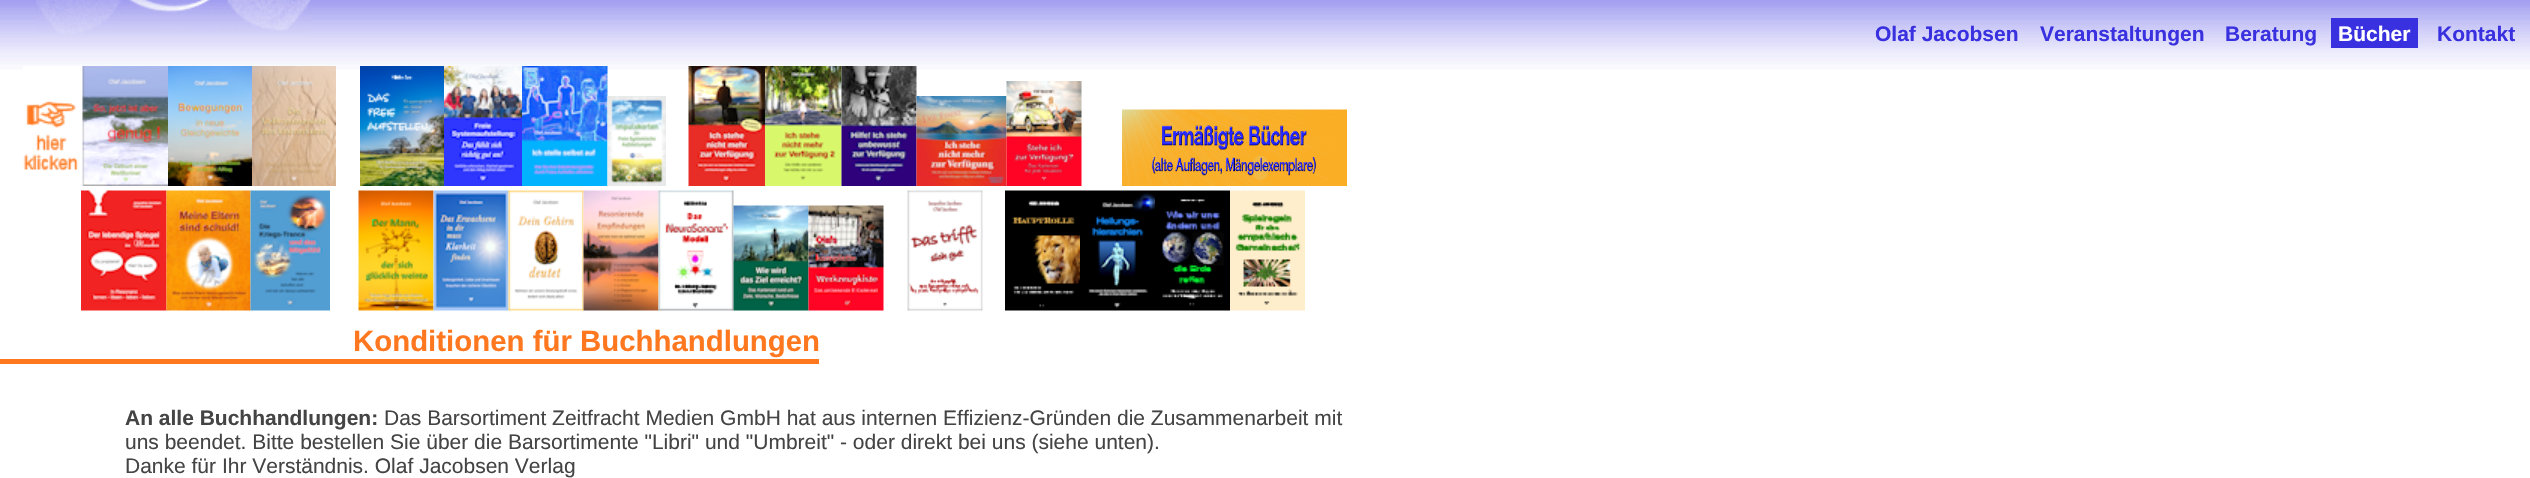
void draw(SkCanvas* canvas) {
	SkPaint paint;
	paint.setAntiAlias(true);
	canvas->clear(0xffffffff);
	canvas->drawImageRect(SkImages::DeferredFromEncodedData(SkData::MakeFromFileName("img1.png")), SkRect::MakeXYWH(0, 0, 2530, 70), SkSamplingOptions());
	canvas->drawImageRect(SkImages::DeferredFromEncodedData(SkData::MakeFromFileName("img2.png")), SkRect::MakeXYWH(36, 0, 275, 34), SkSamplingOptions());
	SkFont f1(fontMgr->matchFamilyStyle("Liberation Sans", SkFontStyle::Bold()), 21);
	f1.setSubpixel(true);
	paint.setColor(0xff3930df);
	canvas->drawString("Olaf Jacobsen", 1875, 41, f1, paint);
	canvas->drawString("Veranstaltungen", 2040, 41, f1, paint);
	canvas->drawString("Beratung", 2225, 41, f1, paint);
	canvas->drawRect(SkRect::MakeXYWH(2331, 18, 87, 30), paint);
	paint.setColor(0xffffffff);
	canvas->drawString("Bücher", 2338, 41, f1, paint);
	paint.setColor(0xff3930df);
	canvas->drawString("Kontakt", 2437, 41, f1, paint);
	canvas->drawImageRect(SkImages::DeferredFromEncodedData(SkData::MakeFromFileName("img3.png")), SkRect::MakeXYWH(23, 66, 59, 105), SkSamplingOptions());
	canvas->drawImageRect(SkImages::DeferredFromEncodedData(SkData::MakeFromFileName("img4.png")), SkRect::MakeXYWH(82, 66, 86, 120), SkSamplingOptions());
	canvas->drawImageRect(SkImages::DeferredFromEncodedData(SkData::MakeFromFileName("img5.png")), SkRect::MakeXYWH(168, 66, 84, 120), SkSamplingOptions());
	canvas->drawImageRect(SkImages::DeferredFromEncodedData(SkData::MakeFromFileName("img6.png")), SkRect::MakeXYWH(252, 66, 84, 120), SkSamplingOptions());
	canvas->drawImageRect(SkImages::DeferredFromEncodedData(SkData::MakeFromFileName("img7.png")), SkRect::MakeXYWH(360, 66, 84, 120), SkSamplingOptions());
	canvas->drawImageRect(SkImages::DeferredFromEncodedData(SkData::MakeFromFileName("img8.png")), SkRect::MakeXYWH(444, 66, 78, 120), SkSamplingOptions());
	canvas->drawImageRect(SkImages::DeferredFromEncodedData(SkData::MakeFromFileName("img9.png")), SkRect::MakeXYWH(522, 66, 86, 120), SkSamplingOptions());
	canvas->drawImageRect(SkImages::DeferredFromEncodedData(SkData::MakeFromFileName("img10.png")), SkRect::MakeXYWH(607, 96, 59, 90), SkSamplingOptions());
	canvas->drawImageRect(SkImages::DeferredFromEncodedData(SkData::MakeFromFileName("img11.png")), SkRect::MakeXYWH(688, 66, 77, 120), SkSamplingOptions());
	canvas->drawImageRect(SkImages::DeferredFromEncodedData(SkData::MakeFromFileName("img12.png")), SkRect::MakeXYWH(765, 66, 77, 120), SkSamplingOptions());
	canvas->drawImageRect(SkImages::DeferredFromEncodedData(SkData::MakeFromFileName("img13.png")), SkRect::MakeXYWH(841, 66, 76, 120), SkSamplingOptions());
	canvas->drawImageRect(SkImages::DeferredFromEncodedData(SkData::MakeFromFileName("img14.png")), SkRect::MakeXYWH(916, 96, 91, 90), SkSamplingOptions());
	canvas->drawImageRect(SkImages::DeferredFromEncodedData(SkData::MakeFromFileName("img15.png")), SkRect::MakeXYWH(1006, 81, 76, 105), SkSamplingOptions());
	canvas->drawImageRect(SkImages::DeferredFromEncodedData(SkData::MakeFromFileName("img16.png")), SkRect::MakeXYWH(1122, 109, 225, 77), SkSamplingOptions());
	canvas->drawImageRect(SkImages::DeferredFromEncodedData(SkData::MakeFromFileName("img17.png")), SkRect::MakeXYWH(81, 190, 86, 121), SkSamplingOptions());
	canvas->drawImageRect(SkImages::DeferredFromEncodedData(SkData::MakeFromFileName("img18.png")), SkRect::MakeXYWH(166, 190, 85, 121), SkSamplingOptions());
	canvas->drawImageRect(SkImages::DeferredFromEncodedData(SkData::MakeFromFileName("img19.png")), SkRect::MakeXYWH(250, 190, 80, 121), SkSamplingOptions());
	canvas->drawImageRect(SkImages::DeferredFromEncodedData(SkData::MakeFromFileName("img20.png")), SkRect::MakeXYWH(358, 190, 76, 121), SkSamplingOptions());
	canvas->drawImageRect(SkImages::DeferredFromEncodedData(SkData::MakeFromFileName("img21.png")), SkRect::MakeXYWH(433, 190, 76, 121), SkSamplingOptions());
	canvas->drawImageRect(SkImages::DeferredFromEncodedData(SkData::MakeFromFileName("img22.png")), SkRect::MakeXYWH(508, 190, 76, 121), SkSamplingOptions());
	canvas->drawImageRect(SkImages::DeferredFromEncodedData(SkData::MakeFromFileName("img23.png")), SkRect::MakeXYWH(583, 190, 76, 121), SkSamplingOptions());
	canvas->drawImageRect(SkImages::DeferredFromEncodedData(SkData::MakeFromFileName("img24.png")), SkRect::MakeXYWH(658, 190, 76, 121), SkSamplingOptions());
	canvas->drawImageRect(SkImages::DeferredFromEncodedData(SkData::MakeFromFileName("img25.png")), SkRect::MakeXYWH(733, 205, 76, 106), SkSamplingOptions());
	canvas->drawImageRect(SkImages::DeferredFromEncodedData(SkData::MakeFromFileName("img26.png")), SkRect::MakeXYWH(808, 205, 76, 106), SkSamplingOptions());
	canvas->drawImageRect(SkImages::DeferredFromEncodedData(SkData::MakeFromFileName("img27.png")), SkRect::MakeXYWH(907, 190, 76, 121), SkSamplingOptions());
	canvas->drawImageRect(SkImages::DeferredFromEncodedData(SkData::MakeFromFileName("img28.png")), SkRect::MakeXYWH(1005, 190, 75, 121), SkSamplingOptions());
	canvas->drawImageRect(SkImages::DeferredFromEncodedData(SkData::MakeFromFileName("img29.png")), SkRect::MakeXYWH(1080, 190, 75, 121), SkSamplingOptions());
	canvas->drawImageRect(SkImages::DeferredFromEncodedData(SkData::MakeFromFileName("img30.png")), SkRect::MakeXYWH(1155, 190, 75, 121), SkSamplingOptions());
	canvas->drawImageRect(SkImages::DeferredFromEncodedData(SkData::MakeFromFileName("img31.png")), SkRect::MakeXYWH(1230, 190, 75, 121), SkSamplingOptions());
	paint.setColor(0xffff781f);
	canvas->drawRect(SkRect::MakeXYWH(0, 359, 819, 5), paint);
	SkFont f2(fontMgr->matchFamilyStyle("Liberation Sans", SkFontStyle::Bold()), 29.4);
	f2.setSubpixel(true);
	canvas->drawString("Konditionen für Buchhandlungen", 353, 351, f2, paint);
	paint.setColor(0xff444444);
	canvas->drawString("An alle Buchhandlungen:", 125, 425, f1, paint);
	SkFont f3(fontMgr->matchFamilyStyle("Liberation Sans", SkFontStyle::Normal()), 21);
	f3.setSubpixel(true);
	canvas->drawString("Das Barsortiment Zeitfracht Medien GmbH hat aus internen Effizienz-Gründen die Zusammenarbeit mit", 384, 425, f3, paint);
	canvas->drawString("uns beendet. Bitte bestellen Sie über die Barsortimente \"Libri\" und \"Umbreit\" - oder direkt bei uns (siehe unten).", 125, 449, f3, paint);
	canvas->drawString("Danke für Ihr Verständnis. Olaf Jacobsen Verlag", 125, 473, f3, paint);
}
